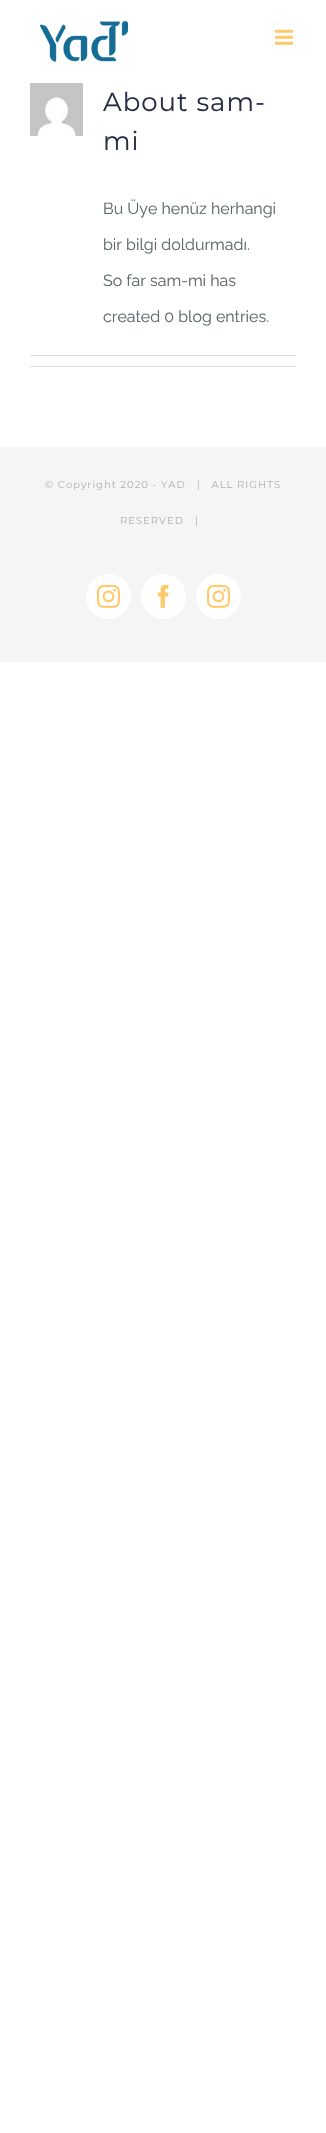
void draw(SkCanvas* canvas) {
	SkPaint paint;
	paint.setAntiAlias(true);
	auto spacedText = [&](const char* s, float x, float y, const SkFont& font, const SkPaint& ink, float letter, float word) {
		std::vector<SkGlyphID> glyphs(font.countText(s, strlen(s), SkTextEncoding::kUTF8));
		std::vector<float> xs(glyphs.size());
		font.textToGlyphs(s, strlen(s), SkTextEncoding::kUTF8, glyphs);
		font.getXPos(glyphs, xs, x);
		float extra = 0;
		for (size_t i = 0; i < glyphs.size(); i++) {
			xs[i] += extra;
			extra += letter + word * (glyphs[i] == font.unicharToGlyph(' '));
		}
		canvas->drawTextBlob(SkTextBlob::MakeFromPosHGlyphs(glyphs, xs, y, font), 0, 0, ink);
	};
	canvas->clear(0xffffffff);
	canvas->drawImageRect(SkImages::DeferredFromEncodedData(SkData::MakeFromFileName("img1.png")), SkRect::MakeXYWH(40, 21, 88, 41), SkSamplingOptions());
	canvas->drawImageRect(SkImages::DeferredFromEncodedData(SkData::MakeFromFileName("img2.png")), SkRect::MakeXYWH(275, 29, 18, 16), SkSamplingOptions());
	canvas->drawImageRect(SkImages::DeferredFromEncodedData(SkData::MakeFromFileName("img3.png")), SkRect::MakeXYWH(30, 83, 53, 53), SkSamplingOptions());
	SkFont f1(fontMgr->matchFamilyStyle("Montserrat", SkFontStyle(100, SkFontStyle::kNormal_Width, SkFontStyle::kUpright_Slant)), 26);
	f1.setSubpixel(true);
	paint.setColor(0xff262e44);
	spacedText("About sam-", 103, 111, f1, paint, 1, 0);
	spacedText("mi", 103, 150, f1, paint, 1, 0);
	SkFont f2(fontMgr->matchFamilyStyle("Raleway", SkFontStyle::Normal()), 16);
	f2.setSubpixel(true);
	paint.setColor(0xff5c6668);
	canvas->drawString("Bu Üye henüz herhangi", 103, 214, f2, paint);
	canvas->drawString("bir bilgi doldurmadı.", 103, 250, f2, paint);
	canvas->drawString("So far sam-mi has", 103, 286, f2, paint);
	canvas->drawString("created 0 blog entries.", 103, 322, f2, paint);
	paint.setColor(0xffe0dede);
	canvas->drawRect(SkRect::MakeXYWH(30, 355, 266, 1), paint);
	canvas->drawRect(SkRect::MakeXYWH(30, 366, 266, 1), paint);
	paint.setColor(0xfff5f5f5);
	canvas->drawRect(SkRect::MakeXYWH(0, 447, 326, 215), paint);
	SkFont f3(fontMgr->matchFamilyStyle("Montserrat", SkFontStyle(100, SkFontStyle::kNormal_Width, SkFontStyle::kUpright_Slant)), 10);
	f3.setSubpixel(true);
	paint.setColor(0xffb2b7b8);
	spacedText("© Copyright 2020 - YAD   |   ALL RIGHTS", 45, 488, f3, paint, 1, 0);
	spacedText("RESERVED", 120, 524, f3, paint, 1, 0);
	spacedText("|", 195, 524, f3, paint, 1, 0);
	paint.setColor(0xffffffff);
	canvas->drawCircle(108.5, 596.5, 22.5, paint);
	canvas->drawImageRect(SkImages::DeferredFromEncodedData(SkData::MakeFromFileName("img4.png")), SkRect::MakeXYWH(97, 584, 23, 24), SkSamplingOptions());
	canvas->drawCircle(163.5, 596.5, 22.5, paint);
	canvas->drawImageRect(SkImages::DeferredFromEncodedData(SkData::MakeFromFileName("img5.png")), SkRect::MakeXYWH(157, 584, 12, 24), SkSamplingOptions());
	canvas->drawCircle(218.5, 596.5, 22.5, paint);
	canvas->drawImageRect(SkImages::DeferredFromEncodedData(SkData::MakeFromFileName("img4.png")), SkRect::MakeXYWH(207, 584, 23, 24), SkSamplingOptions());
}
